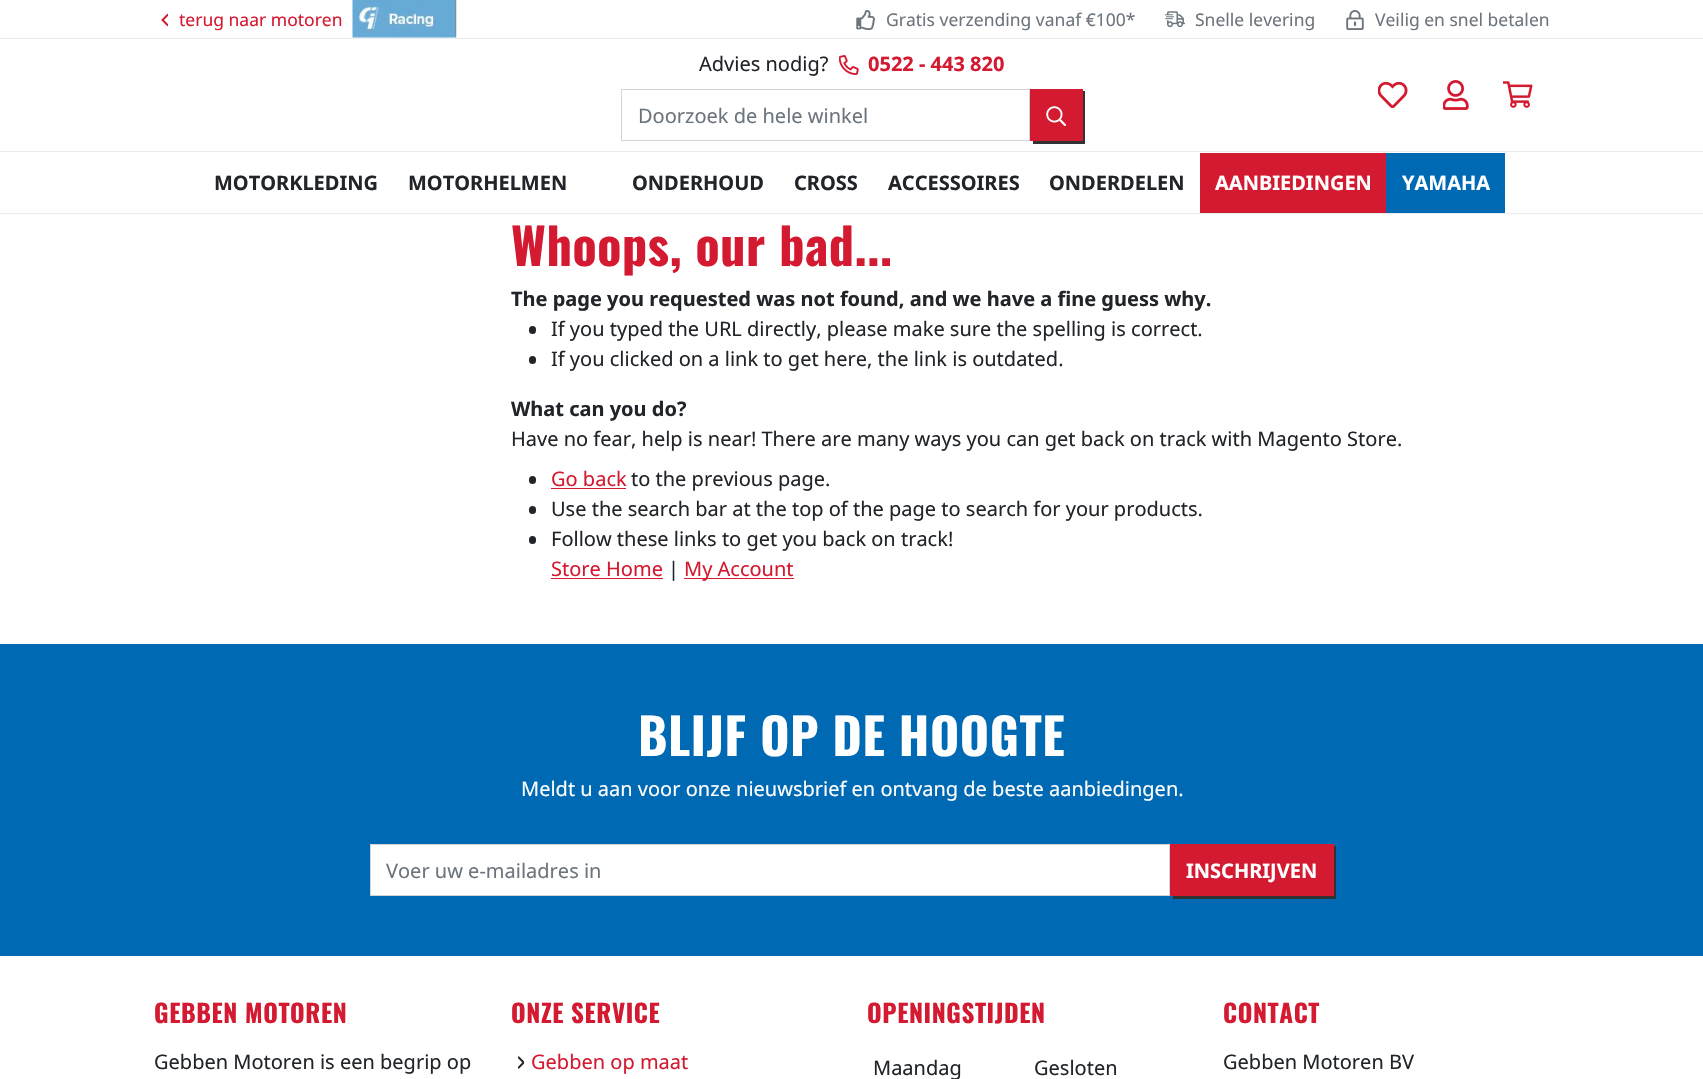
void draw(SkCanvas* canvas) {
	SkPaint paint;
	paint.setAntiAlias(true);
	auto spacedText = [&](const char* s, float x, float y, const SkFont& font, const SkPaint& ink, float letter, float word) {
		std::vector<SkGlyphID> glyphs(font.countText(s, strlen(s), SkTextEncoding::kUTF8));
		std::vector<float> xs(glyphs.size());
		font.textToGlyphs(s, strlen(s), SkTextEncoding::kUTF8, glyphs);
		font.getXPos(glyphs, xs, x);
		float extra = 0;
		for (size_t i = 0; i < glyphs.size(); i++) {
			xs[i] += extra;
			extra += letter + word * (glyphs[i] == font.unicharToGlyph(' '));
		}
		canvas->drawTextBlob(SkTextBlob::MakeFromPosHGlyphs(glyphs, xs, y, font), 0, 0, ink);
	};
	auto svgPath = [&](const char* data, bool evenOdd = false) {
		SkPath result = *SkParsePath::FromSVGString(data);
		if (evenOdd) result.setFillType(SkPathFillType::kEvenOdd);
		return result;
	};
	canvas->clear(0xffffffff);
	paint.setColor(0xffe9ecef);
	canvas->drawRect(SkRect::MakeXYWH(0, 151, 1703, 1), paint);
	canvas->drawRect(SkRect::MakeXYWH(0, 38, 1703, 1), paint);
	canvas->drawImageRect(SkImages::DeferredFromEncodedData(SkData::MakeFromFileName("img1.png")), SkRect::MakeXYWH(161, 13, 7, 14), SkSamplingOptions());
	SkFont f1(fontMgr->matchFamilyStyle("Noto Sans", SkFontStyle::Normal()), 17.5);
	f1.setSubpixel(true);
	paint.setColor(0xffd41a31);
	canvas->drawString("terug naar motoren", 179, 26, f1, paint);
	canvas->drawImageRect(SkImages::DeferredFromEncodedData(SkData::MakeFromFileName("img2.png")), SkRect::MakeXYWH(352, 0, 105, 38), SkSamplingOptions());
	canvas->drawImageRect(SkImages::DeferredFromEncodedData(SkData::MakeFromFileName("img3.png")), SkRect::MakeXYWH(856, 10, 19, 20), SkSamplingOptions());
	paint.setColor(0xff6c757d);
	canvas->drawString("Gratis verzending vanaf €100*", 886, 26, f1, paint);
	canvas->drawImageRect(SkImages::DeferredFromEncodedData(SkData::MakeFromFileName("img4.png")), SkRect::MakeXYWH(1165, 11, 20, 17), SkSamplingOptions());
	canvas->drawString("Snelle levering", 1195, 26, f1, paint);
	canvas->drawImageRect(SkImages::DeferredFromEncodedData(SkData::MakeFromFileName("img5.png")), SkRect::MakeXYWH(1346, 10, 18, 20), SkSamplingOptions());
	canvas->drawString("Veilig en snel betalen", 1375, 26, f1, paint);
	SkFont f2(fontMgr->matchFamilyStyle("Noto Sans", SkFontStyle::Normal()), 20);
	f2.setSubpixel(true);
	paint.setColor(0xff212529);
	canvas->drawString("Advies nodig?", 699, 71, f2, paint);
	canvas->drawImageRect(SkImages::DeferredFromEncodedData(SkData::MakeFromFileName("img6.png")), SkRect::MakeXYWH(839, 55, 20, 20), SkSamplingOptions());
	SkFont f3(fontMgr->matchFamilyStyle("Noto Sans", SkFontStyle::Bold()), 20);
	f3.setSubpixel(true);
	paint.setColor(0xffd41a31);
	canvas->drawString("0522 - 443 820", 868, 71, f3, paint);
	paint.setStroke(true);
	paint.setStrokeWidth(1);
	paint.setColor(0xffced4da);
	canvas->drawRect(SkRect::MakeXYWH(621.5, 89.5, 408, 51), paint);
	paint.setStroke(false);
	paint.setColor(0xff6c757d);
	canvas->drawString("Doorzoek de hele winkel", 638, 123, f2, paint);
	paint.setColor(0xff333333);
	canvas->drawPath(svgPath("M1033 141V144H1085V91H1082V141Z"), paint);
	paint.setColor(0xffd41a31);
	canvas->drawRect(SkRect::MakeXYWH(1030, 89, 53, 52), paint);
	canvas->drawImageRect(SkImages::DeferredFromEncodedData(SkData::MakeFromFileName("img7.png")), SkRect::MakeXYWH(1046, 106, 20, 20), SkSamplingOptions());
	canvas->drawImageRect(SkImages::DeferredFromEncodedData(SkData::MakeFromFileName("img8.png")), SkRect::MakeXYWH(1378, 81, 30, 28), SkSamplingOptions());
	canvas->drawImageRect(SkImages::DeferredFromEncodedData(SkData::MakeFromFileName("img9.png")), SkRect::MakeXYWH(1443, 80, 26, 30), SkSamplingOptions());
	canvas->drawImageRect(SkImages::DeferredFromEncodedData(SkData::MakeFromFileName("img10.png")), SkRect::MakeXYWH(1503, 81, 30, 27), SkSamplingOptions());
	paint.setColor(0xffe9ecef);
	canvas->drawRect(SkRect::MakeXYWH(0, 213, 1703, 1), paint);
	paint.setColor(0xff212529);
	canvas->drawString("MOTORKLEDING", 214, 190, f3, paint);
	canvas->drawString("MOTORHELMEN", 408, 190, f3, paint);
	canvas->drawString("ONDERHOUD", 632, 190, f3, paint);
	canvas->drawString("CROSS", 794, 190, f3, paint);
	canvas->drawString("ACCESSOIRES", 888, 190, f3, paint);
	canvas->drawString("ONDERDELEN", 1049, 190, f3, paint);
	paint.setColor(0xffd41a31);
	canvas->drawRect(SkRect::MakeXYWH(1200, 153, 186, 60), paint);
	paint.setColor(0xffffffff);
	canvas->drawString("AANBIEDINGEN", 1215, 190, f3, paint);
	paint.setColor(0xff0069b3);
	canvas->drawRect(SkRect::MakeXYWH(1386, 153, 119, 60), paint);
	paint.setColor(0xffffffff);
	canvas->drawString("YAMAHA", 1402, 190, f3, paint);
	SkFont f4(fontMgr->matchFamilyStyle("Oswald", SkFontStyle::Bold()), 50);
	f4.setSubpixel(true);
	paint.setColor(0xffd41a31);
	spacedText("Whoops, our bad...", 511, 266, f4, paint, 0.6, 0);
	paint.setColor(0xff212529);
	canvas->drawString("The page you requested was not found, and we have a fine guess why.", 511, 306, f3, paint);
	canvas->drawRoundRect(SkRect::MakeXYWH(529, 326, 7, 8), 3.5, 3.5, paint);
	canvas->drawString("If you typed the URL directly, please make sure the spelling is correct.", 551, 336, f2, paint);
	canvas->drawRoundRect(SkRect::MakeXYWH(529, 356, 7, 8), 3.5, 3.5, paint);
	canvas->drawString("If you clicked on a link to get here, the link is outdated.", 551, 366, f2, paint);
	canvas->drawString("What can you do?", 511, 416, f3, paint);
	canvas->drawString("Have no fear, help is near! There are many ways you can get back on track with Magento Store.", 511, 446, f2, paint);
	canvas->drawRoundRect(SkRect::MakeXYWH(529, 476, 7, 8), 3.5, 3.5, paint);
	paint.setColor(0xffd41a31);
	canvas->drawString("Go back", 551, 486, f2, paint);
	canvas->drawRect(SkRect::MakeXYWH(551, 488, 75, 1), paint);
	paint.setColor(0xff212529);
	canvas->drawString("to the previous page.", 631, 486, f2, paint);
	canvas->drawRoundRect(SkRect::MakeXYWH(529, 506, 7, 8), 3.5, 3.5, paint);
	canvas->drawString("Use the search bar at the top of the page to search for your products.", 551, 516, f2, paint);
	canvas->drawRoundRect(SkRect::MakeXYWH(529, 536, 7, 8), 3.5, 3.5, paint);
	canvas->drawString("Follow these links to get you back on track!", 551, 546, f2, paint);
	paint.setColor(0xffd41a31);
	canvas->drawString("Store Home", 551, 576, f2, paint);
	canvas->drawRect(SkRect::MakeXYWH(551, 578, 112, 1), paint);
	paint.setColor(0xff212529);
	canvas->drawString("|", 668, 576, f2, paint);
	paint.setColor(0xffd41a31);
	canvas->drawRect(SkRect::MakeXYWH(684, 578, 110, 1), paint);
	canvas->drawString("My Account", 684, 576, f2, paint);
	paint.setColor(0xff0069b3);
	canvas->drawRect(SkRect::MakeXYWH(0, 644, 1703, 312), paint);
	paint.setColor(0xffffffff);
	spacedText("BLIJF OP DE HOOGTE", 638, 756, f4, paint, 0.6, 0);
	canvas->drawString("Meldt u aan voor onze nieuwsbrief en ontvang de beste aanbiedingen.", 521, 796, f2, paint);
	canvas->drawRect(SkRect::MakeXYWH(370.5, 844.5, 799, 51), paint);
	paint.setStroke(true);
	paint.setColor(0xffced4da);
	canvas->drawRect(SkRect::MakeXYWH(370.5, 844.5, 799, 51), paint);
	paint.setStroke(false);
	paint.setColor(0xff6c757d);
	canvas->drawString("Voer uw e-mailadres in", 386, 878, f2, paint);
	paint.setColor(0xff333333);
	canvas->drawPath(svgPath("M1173 896V899H1336V846H1334V896Z"), paint);
	paint.setColor(0xffd41a31);
	canvas->drawRect(SkRect::MakeXYWH(1170, 844, 164, 52), paint);
	paint.setColor(0xffffffff);
	canvas->drawString("INSCHRIJVEN", 1186, 878, f3, paint);
	SkFont f5(fontMgr->matchFamilyStyle("Oswald", SkFontStyle::Bold()), 25);
	f5.setSubpixel(true);
	paint.setColor(0xffd41a31);
	spacedText("GEBBEN MOTOREN", 154, 1023, f5, paint, 0.6, 0);
	paint.setColor(0xff212529);
	canvas->drawString("Gebben Motoren is een begrip op", 154, 1069, f2, paint);
	paint.setColor(0xffd41a31);
	spacedText("ONZE SERVICE", 511, 1023, f5, paint, 0.6, 0);
	canvas->drawImageRect(SkImages::DeferredFromEncodedData(SkData::MakeFromFileName("img11.png")), SkRect::MakeXYWH(518, 1056, 6, 13), SkSamplingOptions());
	canvas->drawString("Gebben op maat", 531, 1069, f2, paint);
	spacedText("OPENINGSTIJDEN", 867, 1023, f5, paint, 0.6, 0);
	paint.setColor(0xff212529);
	canvas->drawString("Maandag", 873, 1075, f2, paint);
	canvas->drawString("Gesloten", 1034, 1075, f2, paint);
	paint.setColor(0xffd41a31);
	spacedText("CONTACT", 1223, 1023, f5, paint, 0.6, 0);
	paint.setColor(0xff212529);
	canvas->drawString("Gebben Motoren BV", 1223, 1069, f2, paint);
}
